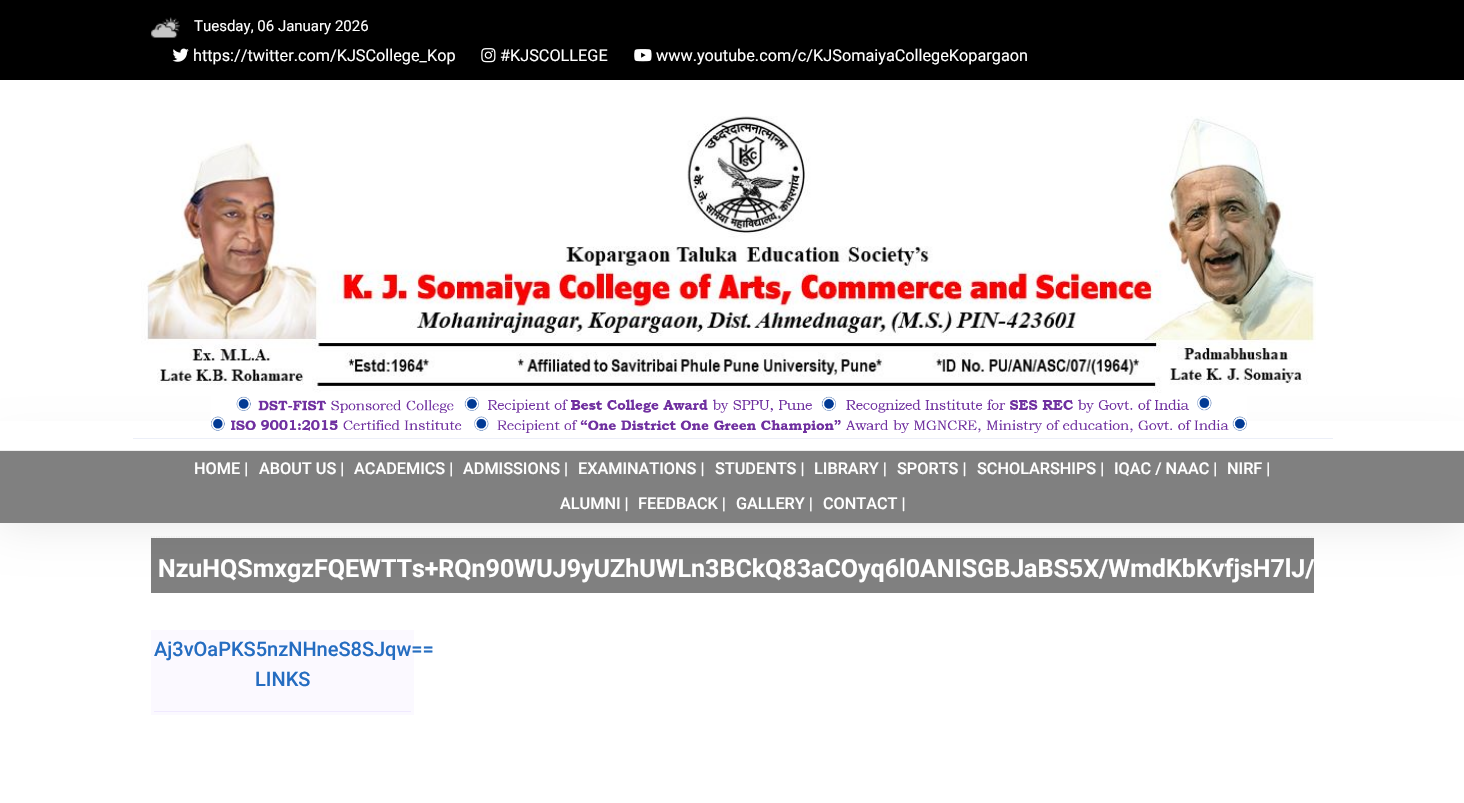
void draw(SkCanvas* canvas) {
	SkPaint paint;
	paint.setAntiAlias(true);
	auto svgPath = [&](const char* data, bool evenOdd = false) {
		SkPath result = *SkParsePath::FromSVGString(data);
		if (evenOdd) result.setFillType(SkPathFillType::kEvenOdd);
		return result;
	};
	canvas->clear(0xffffffff);
	paint.setColor(0xff000000);
	canvas->drawRect(SkRect::MakeXYWH(0, 0, 1464, 80), paint);
	canvas->drawImageRect(SkImages::DeferredFromEncodedData(SkData::MakeFromFileName("img1.png")), SkRect::MakeXYWH(151, 17, 29, 21), SkSamplingOptions());
	SkFont f1(fontMgr->matchFamilyStyle("Roboto", SkFontStyle::Normal()), 15);
	f1.setSubpixel(true);
	paint.setColor(0xffffffff);
	canvas->drawString("Tuesday, 06 January 2026", 194, 31, f1, paint);
	canvas->drawImageRect(SkImages::DeferredFromEncodedData(SkData::MakeFromFileName("img2.png")), SkRect::MakeXYWH(172, 48, 17, 14), SkSamplingOptions());
	SkFont f2(fontMgr->matchFamilyStyle("Roboto", SkFontStyle::Normal()), 16.25);
	f2.setSubpixel(true);
	canvas->drawString("https://twitter.com/KJSCollege_Kop", 193, 61, f2, paint);
	canvas->drawImageRect(SkImages::DeferredFromEncodedData(SkData::MakeFromFileName("img3.png")), SkRect::MakeXYWH(481, 48, 15, 15), SkSamplingOptions());
	canvas->drawString("#KJSCOLLEGE", 500, 61, f2, paint);
	canvas->drawImageRect(SkImages::DeferredFromEncodedData(SkData::MakeFromFileName("img4.png")), SkRect::MakeXYWH(634, 49, 18, 13), SkSamplingOptions());
	canvas->drawString("www.youtube.com/c/KJSomaiyaCollegeKopargaon", 656, 61, f2, paint);
	paint.setStroke(true);
	paint.setStrokeWidth(1.2);
	paint.setColor(0xffeeeeee);
	paint.setPathEffect(SkDashPathEffect::Make({{1.25f, 1.25f}}, 0));
	canvas->drawPath(svgPath("M151 537H1314"), paint);
	paint.setPathEffect(nullptr);
	paint.setStroke(false);
	paint.setColor(0xff808080);
	canvas->drawRect(SkRect::MakeXYWH(151, 538, 1163, 55), paint);
	paint.setColor(0x1a000000);
	paint.setMaskFilter(SkMaskFilter::MakeBlur(kNormal_SkBlurStyle, 22.5));
	canvas->drawRect(SkRect::MakeXYWH(0, 450, 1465, 73), paint);
	paint.setMaskFilter(nullptr);
	paint.setColor(0xffffffff);
	canvas->drawRect(SkRect::MakeXYWH(0, 421, 1464, 29), paint);
	canvas->drawImageRect(SkImages::DeferredFromEncodedData(SkData::MakeFromFileName("img5.png")), SkRect::MakeXYWH(141, 116, 1175, 277), SkSamplingOptions());
	canvas->drawImageRect(SkImages::DeferredFromEncodedData(SkData::MakeFromFileName("img6.png")), SkRect::MakeXYWH(211, 395, 1036, 38), SkSamplingOptions());
	paint.setColor(0xffeceff8);
	canvas->drawRect(SkRect::MakeXYWH(133, 438, 1200, 1), paint);
	paint.setColor(0xff808080);
	canvas->drawRect(SkRect::MakeXYWH(0, 451, 1464, 72), paint);
	paint.setColor(0xffeeeeee);
	canvas->drawRect(SkRect::MakeXYWH(0, 450, 1464, 1), paint);
	SkFont f3(fontMgr->matchFamilyStyle("Roboto", SkFontStyle(500, SkFontStyle::kNormal_Width, SkFontStyle::kUpright_Slant)), 16.25);
	f3.setSubpixel(true);
	paint.setColor(0xffffffff);
	canvas->drawString("HOME |", 194, 474, f3, paint);
	canvas->drawString("ABOUT US |", 259, 474, f3, paint);
	canvas->drawString("ACADEMICS |", 354, 474, f3, paint);
	canvas->drawString("ADMISSIONS |", 463, 474, f3, paint);
	canvas->drawString("EXAMINATIONS |", 578, 474, f3, paint);
	canvas->drawString("STUDENTS |", 715, 474, f3, paint);
	canvas->drawString("LIBRARY |", 814, 474, f3, paint);
	canvas->drawString("SPORTS |", 897, 474, f3, paint);
	canvas->drawString("SCHOLARSHIPS |", 977, 474, f3, paint);
	canvas->drawString("IQAC / NAAC |", 1114, 474, f3, paint);
	canvas->drawString("NIRF |", 1227, 474, f3, paint);
	canvas->drawString("ALUMNI |", 560, 509, f3, paint);
	canvas->drawString("FEEDBACK |", 638, 509, f3, paint);
	canvas->drawString("GALLERY |", 736, 509, f3, paint);
	canvas->drawString("CONTACT |", 823, 509, f3, paint);
	SkFont f4(fontMgr->matchFamilyStyle("Roboto", SkFontStyle::Bold()), 25);
	f4.setSubpixel(true);
	canvas->drawString("NzuHQSmxgzFQEWTTs+RQn90WUJ9yUZhUWLn3BCkQ83aCOyq6l0ANISGBJaBS5X/WmdKbKvfjsH7lJ/", 158, 577, f4, paint);
	paint.setColor(0xfffbf9ff);
	canvas->drawRect(SkRect::MakeXYWH(151, 630, 263, 85), paint);
	SkFont f5(fontMgr->matchFamilyStyle("Roboto", SkFontStyle(500, SkFontStyle::kNormal_Width, SkFontStyle::kUpright_Slant)), 20);
	f5.setSubpixel(true);
	paint.setColor(0xff256dc1);
	canvas->drawString("Aj3vOaPKS5nzNHneS8SJqw==", 154, 656, f5, paint);
	canvas->drawString("LINKS", 255, 686, f5, paint);
	paint.setColor(0xfff0e9ff);
	canvas->drawRect(SkRect::MakeXYWH(154, 711, 257, 1), paint);
}
